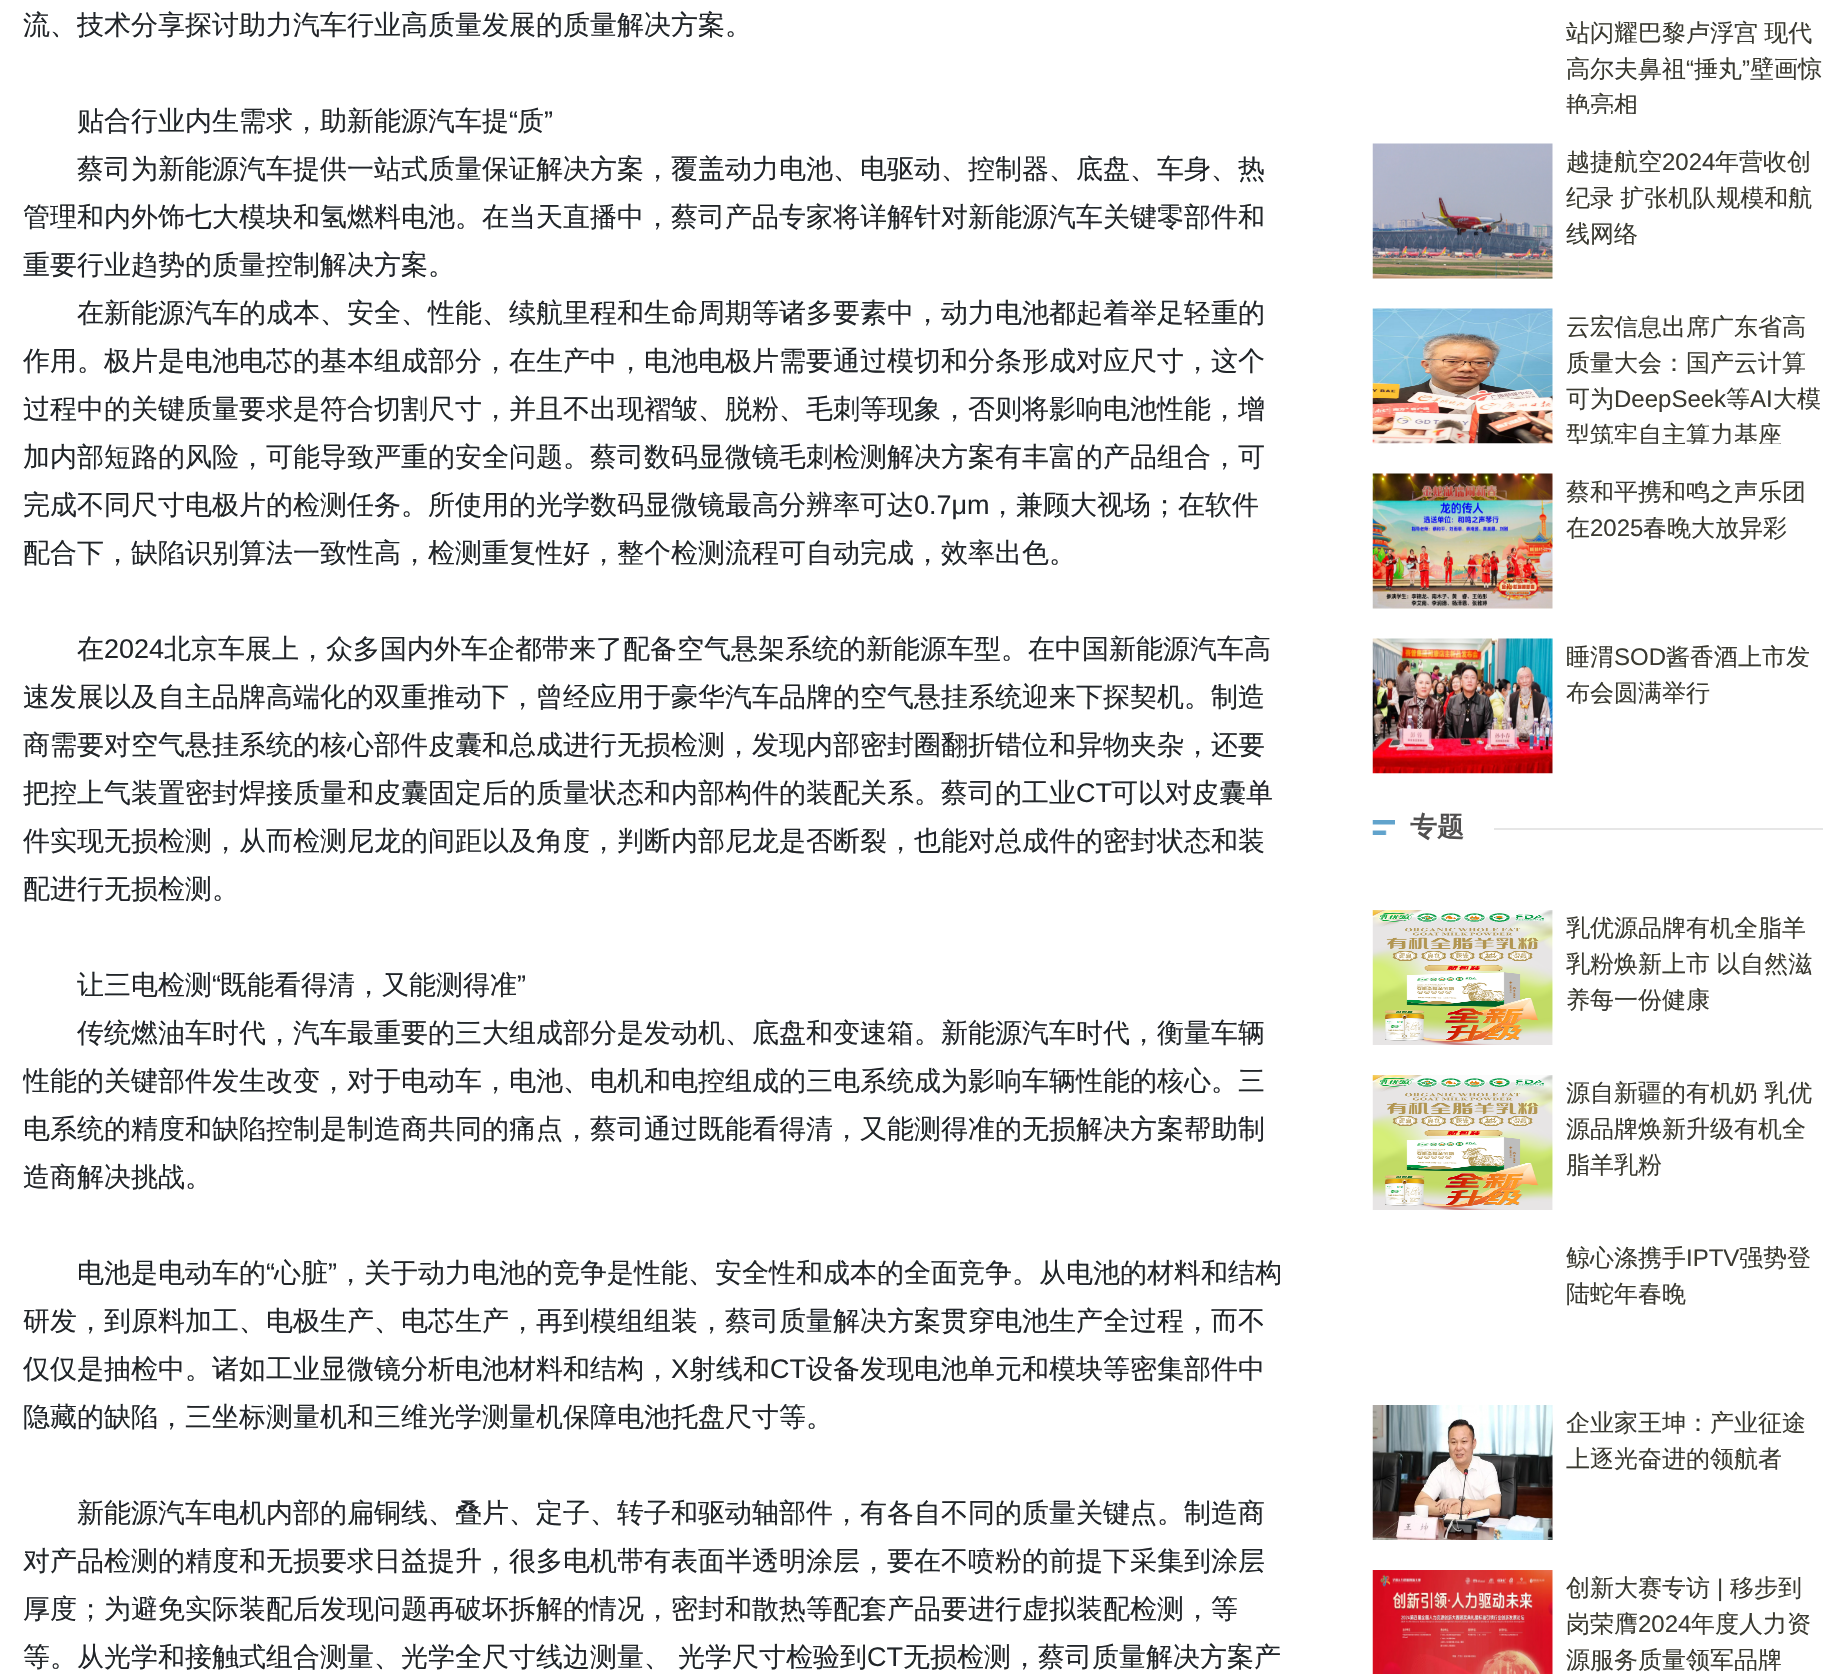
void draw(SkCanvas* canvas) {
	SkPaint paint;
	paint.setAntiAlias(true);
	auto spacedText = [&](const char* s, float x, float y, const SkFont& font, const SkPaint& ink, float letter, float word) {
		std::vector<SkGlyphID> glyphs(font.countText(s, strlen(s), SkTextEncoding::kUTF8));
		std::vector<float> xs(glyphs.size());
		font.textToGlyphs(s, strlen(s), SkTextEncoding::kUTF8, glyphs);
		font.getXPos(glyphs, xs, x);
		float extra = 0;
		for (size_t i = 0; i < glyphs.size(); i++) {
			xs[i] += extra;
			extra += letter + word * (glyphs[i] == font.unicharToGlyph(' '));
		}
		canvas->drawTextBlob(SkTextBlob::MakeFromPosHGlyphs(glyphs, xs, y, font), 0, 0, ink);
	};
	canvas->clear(0xffffffff);
	SkFont f1(fontMgr->matchFamilyStyle("WenQuanYi Zen Hei", SkFontStyle(500, SkFontStyle::kNormal_Width, SkFontStyle::kUpright_Slant)), 27);
	f1.setSubpixel(true);
	paint.setColor(0xff212529);
	canvas->drawString("流、技术分享探讨助力汽车行业高质量发展的质量解决方案。", 23, 34, f1, paint);
	canvas->drawString("贴合行业内生需求，助新能源汽车提", 77, 130, f1, paint);
	SkFont f2(fontMgr->matchFamilyStyle("Liberation Sans", SkFontStyle::Normal()), 27);
	f2.setSubpixel(true);
	canvas->drawString("“", 509, 130, f2, paint);
	canvas->drawString("质", 517, 130, f1, paint);
	canvas->drawString("”", 544, 130, f2, paint);
	canvas->drawString("蔡司为新能源汽车提供一站式质量保证解决方案，覆盖动力电池、电驱动、控制器、底盘、车身、热", 77, 178, f1, paint);
	canvas->drawString("管理和内外饰七大模块和氢燃料电池。在当天直播中，蔡司产品专家将详解针对新能源汽车关键零部件和", 23, 226, f1, paint);
	canvas->drawString("重要行业趋势的质量控制解决方案。", 23, 274, f1, paint);
	canvas->drawString("在新能源汽车的成本、安全、性能、续航里程和生命周期等诸多要素中，动力电池都起着举足轻重的", 77, 322, f1, paint);
	canvas->drawString("作用。极片是电池电芯的基本组成部分，在生产中，电池电极片需要通过模切和分条形成对应尺寸，这个", 23, 370, f1, paint);
	canvas->drawString("过程中的关键质量要求是符合切割尺寸，并且不出现褶皱、脱粉、毛刺等现象，否则将影响电池性能，增", 23, 418, f1, paint);
	canvas->drawString("加内部短路的风险，可能导致严重的安全问题。蔡司数码显微镜毛刺检测解决方案有丰富的产品组合，可", 23, 466, f1, paint);
	canvas->drawString("完成不同尺寸电极片的检测任务。所使用的光学数码显微镜最高分辨率可达", 23, 514, f1, paint);
	canvas->drawString("0.7μm", 914, 514, f2, paint);
	canvas->drawString("，兼顾大视场；在软件", 989, 514, f1, paint);
	canvas->drawString("配合下，缺陷识别算法一致性高，检测重复性好，整个检测流程可自动完成，效率出色。", 23, 562, f1, paint);
	canvas->drawString("在", 77, 658, f1, paint);
	canvas->drawString("2024", 104, 658, f2, paint);
	canvas->drawString("北京车展上，众多国内外车企都带来了配备空气悬架系统的新能源车型。在中国新能源汽车高", 164, 658, f1, paint);
	canvas->drawString("速发展以及自主品牌高端化的双重推动下，曾经应用于豪华汽车品牌的空气悬挂系统迎来下探契机。制造", 23, 706, f1, paint);
	canvas->drawString("商需要对空气悬挂系统的核心部件皮囊和总成进行无损检测，发现内部密封圈翻折错位和异物夹杂，还要", 23, 754, f1, paint);
	canvas->drawString("把控上气装置密封焊接质量和皮囊固定后的质量状态和内部构件的装配关系。蔡司的工业", 23, 802, f1, paint);
	canvas->drawString("CT", 1076, 802, f2, paint);
	canvas->drawString("可以对皮囊单", 1111, 802, f1, paint);
	canvas->drawString("件实现无损检测，从而检测尼龙的间距以及角度，判断内部尼龙是否断裂，也能对总成件的密封状态和装", 23, 850, f1, paint);
	canvas->drawString("配进行无损检测。", 23, 898, f1, paint);
	canvas->drawString("让三电检测", 77, 994, f1, paint);
	canvas->drawString("“", 212, 994, f2, paint);
	canvas->drawString("既能看得清，又能测得准", 220, 994, f1, paint);
	canvas->drawString("”", 517, 994, f2, paint);
	canvas->drawString("传统燃油车时代，汽车最重要的三大组成部分是发动机、底盘和变速箱。新能源汽车时代，衡量车辆", 77, 1042, f1, paint);
	canvas->save();
	canvas->clipRect(SkRect::MakeXYWH(23, 0, 1260, 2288));
	canvas->drawString("性能的关键部件发生改变，对于电动车，电池、电机和电控组成的三电系统成为影响车辆性能的核心。三", 23, 1090, f1, paint);
	canvas->restore();
	canvas->drawString("电系统的精度和缺陷控制是制造商共同的痛点，蔡司通过既能看得清，又能测得准的无损解决方案帮助制", 23, 1138, f1, paint);
	canvas->drawString("造商解决挑战。", 23, 1186, f1, paint);
	canvas->drawString("电池是电动车的", 77, 1282, f1, paint);
	canvas->drawString("“", 266, 1282, f2, paint);
	canvas->drawString("心脏", 274, 1282, f1, paint);
	canvas->drawString("”", 328, 1282, f2, paint);
	canvas->drawString("，关于动力电池的竞争是性能、安全性和成本的全面竞争。从电池的材料和结构", 337, 1282, f1, paint);
	canvas->drawString("研发，到原料加工、电极生产、电芯生产，再到模组组装，蔡司质量解决方案贯穿电池生产全过程，而不", 23, 1330, f1, paint);
	canvas->drawString("仅仅是抽检中。诸如工业显微镜分析电池材料和结构，", 23, 1378, f1, paint);
	canvas->drawString("X", 671, 1378, f2, paint);
	canvas->drawString("射线和", 689, 1378, f1, paint);
	canvas->drawString("CT", 770, 1378, f2, paint);
	canvas->drawString("设备发现电池单元和模块等密集部件中", 806, 1378, f1, paint);
	canvas->drawString("隐藏的缺陷，三坐标测量机和三维光学测量机保障电池托盘尺寸等。", 23, 1426, f1, paint);
	canvas->drawString("新能源汽车电机内部的扁铜线、叠片、定子、转子和驱动轴部件，有各自不同的质量关键点。制造商", 77, 1522, f1, paint);
	canvas->drawString("对产品检测的精度和无损要求日益提升，很多电机带有表面半透明涂层，要在不喷粉的前提下采集到涂层", 23, 1570, f1, paint);
	canvas->drawString("厚度；为避免实际装配后发现问题再破坏拆解的情况，密封和散热等配套产品要进行虚拟装配检测，等", 23, 1618, f1, paint);
	spacedText("等。从光学和接触式组合测量、光学全尺寸线边测量、 光学尺寸检验到", 23, 1666, f1, paint, 0, -1);
	canvas->drawString("CT", 867, 1666, f2, paint);
	canvas->drawString("无损检测，蔡司质量解决方案产", 903, 1666, f1, paint);
	SkFont f3(fontMgr->matchFamilyStyle("WenQuanYi Zen Hei", SkFontStyle(500, SkFontStyle::kNormal_Width, SkFontStyle::kUpright_Slant)), 24);
	f3.setSubpixel(true);
	paint.setColor(0xff3a3a31);
	spacedText("站闪耀巴黎卢浮宫 现代", 1566, 41, f3, paint, 0, -1);
	canvas->drawString("高尔夫鼻祖", 1566, 77, f3, paint);
	SkFont f4(fontMgr->matchFamilyStyle("Liberation Sans", SkFontStyle::Normal()), 24);
	f4.setSubpixel(true);
	canvas->drawString("“", 1686, 77, f4, paint);
	canvas->drawString("捶丸", 1694, 77, f3, paint);
	canvas->drawString("”", 1742, 77, f4, paint);
	canvas->drawString("壁画惊", 1750, 77, f3, paint);
	canvas->save();
	canvas->clipRect(SkRect::MakeXYWH(1566, 0, 257, 114));
	canvas->drawString("艳亮相", 1566, 113, f3, paint);
	canvas->restore();
	canvas->drawImageRect(SkImages::DeferredFromEncodedData(SkData::MakeFromFileName("img1.png")), SkRect::MakeXYWH(1372, 143, 181, 136), SkSamplingOptions());
	canvas->drawString("越捷航空", 1566, 170, f3, paint);
	canvas->drawString("2024", 1662, 170, f4, paint);
	canvas->drawString("年营收创", 1715, 170, f3, paint);
	spacedText("纪录 扩张机队规模和航", 1566, 206, f3, paint, 0, -1);
	canvas->drawString("线网络", 1566, 242, f3, paint);
	canvas->drawImageRect(SkImages::DeferredFromEncodedData(SkData::MakeFromFileName("img2.png")), SkRect::MakeXYWH(1372, 308, 181, 136), SkSamplingOptions());
	canvas->drawString("云宏信息出席广东省高", 1566, 335, f3, paint);
	canvas->drawString("质量大会：国产云计算", 1566, 371, f3, paint);
	canvas->drawString("可为", 1566, 407, f3, paint);
	canvas->drawString("DeepSeek", 1614, 407, f4, paint);
	canvas->drawString("等", 1726, 407, f3, paint);
	canvas->drawString("AI", 1750, 407, f4, paint);
	canvas->drawString("大模", 1773, 407, f3, paint);
	canvas->save();
	canvas->clipRect(SkRect::MakeXYWH(1566, 309, 257, 135));
	canvas->drawString("型筑牢自主算力基座", 1566, 443, f3, paint);
	canvas->restore();
	canvas->drawImageRect(SkImages::DeferredFromEncodedData(SkData::MakeFromFileName("img3.png")), SkRect::MakeXYWH(1372, 473, 181, 136), SkSamplingOptions());
	canvas->drawString("蔡和平携和鸣之声乐团", 1566, 500, f3, paint);
	canvas->drawString("在", 1566, 536, f3, paint);
	canvas->drawString("2025", 1590, 536, f4, paint);
	canvas->drawString("春晚大放异彩", 1643, 536, f3, paint);
	canvas->drawImageRect(SkImages::DeferredFromEncodedData(SkData::MakeFromFileName("img4.png")), SkRect::MakeXYWH(1372, 638, 181, 136), SkSamplingOptions());
	canvas->drawString("睡渭", 1566, 665, f3, paint);
	canvas->drawString("SOD", 1614, 665, f4, paint);
	canvas->drawString("酱香酒上市发", 1666, 665, f3, paint);
	canvas->drawString("布会圆满举行", 1566, 701, f3, paint);
	canvas->drawImageRect(SkImages::DeferredFromEncodedData(SkData::MakeFromFileName("img5.png")), SkRect::MakeXYWH(1372, 820, 23, 15), SkSamplingOptions());
	SkFont f5(fontMgr->matchFamilyStyle("WenQuanYi Zen Hei", SkFontStyle::Bold()), 27);
	f5.setSubpixel(true);
	paint.setColor(0xff515050);
	canvas->drawString("专题", 1410, 836, f5, paint);
	paint.setColor(0xffe6e6e6);
	canvas->drawRect(SkRect::MakeXYWH(1494, 828, 329, 2), paint);
	canvas->drawImageRect(SkImages::DeferredFromEncodedData(SkData::MakeFromFileName("img6.png")), SkRect::MakeXYWH(1372, 910, 181, 135), SkSamplingOptions());
	paint.setColor(0xff3a3a31);
	canvas->drawString("乳优源品牌有机全脂羊", 1566, 936, f3, paint);
	spacedText("乳粉焕新上市 以自然滋", 1566, 972, f3, paint, 0, -1);
	canvas->drawString("养每一份健康", 1566, 1008, f3, paint);
	canvas->drawImageRect(SkImages::DeferredFromEncodedData(SkData::MakeFromFileName("img7.png")), SkRect::MakeXYWH(1372, 1075, 181, 135), SkSamplingOptions());
	spacedText("源自新疆的有机奶 乳优", 1566, 1101, f3, paint, 0, -1);
	canvas->drawString("源品牌焕新升级有机全", 1566, 1137, f3, paint);
	canvas->drawString("脂羊乳粉", 1566, 1173, f3, paint);
	canvas->drawString("鲸心涤携手", 1566, 1266, f3, paint);
	canvas->drawString("IPTV", 1686, 1266, f4, paint);
	canvas->drawString("强势登", 1739, 1266, f3, paint);
	canvas->drawString("陆蛇年春晚", 1566, 1302, f3, paint);
	canvas->drawImageRect(SkImages::DeferredFromEncodedData(SkData::MakeFromFileName("img8.png")), SkRect::MakeXYWH(1372, 1405, 181, 135), SkSamplingOptions());
	canvas->drawString("企业家王坤：产业征途", 1566, 1431, f3, paint);
	canvas->drawString("上逐光奋进的领航者", 1566, 1467, f3, paint);
	canvas->drawImageRect(SkImages::DeferredFromEncodedData(SkData::MakeFromFileName("img9.png")), SkRect::MakeXYWH(1372, 1570, 181, 104), SkSamplingOptions());
	canvas->drawString("创新大赛专访", 1566, 1596, f3, paint);
	canvas->drawString("|", 1717, 1596, f4, paint);
	canvas->drawString("移步到", 1730, 1596, f3, paint);
	canvas->drawString("岗荣膺", 1566, 1632, f3, paint);
	canvas->drawString("2024", 1638, 1632, f4, paint);
	canvas->drawString("年度人力资", 1691, 1632, f3, paint);
	canvas->drawString("源服务质量领军品牌", 1566, 1668, f3, paint);
}
